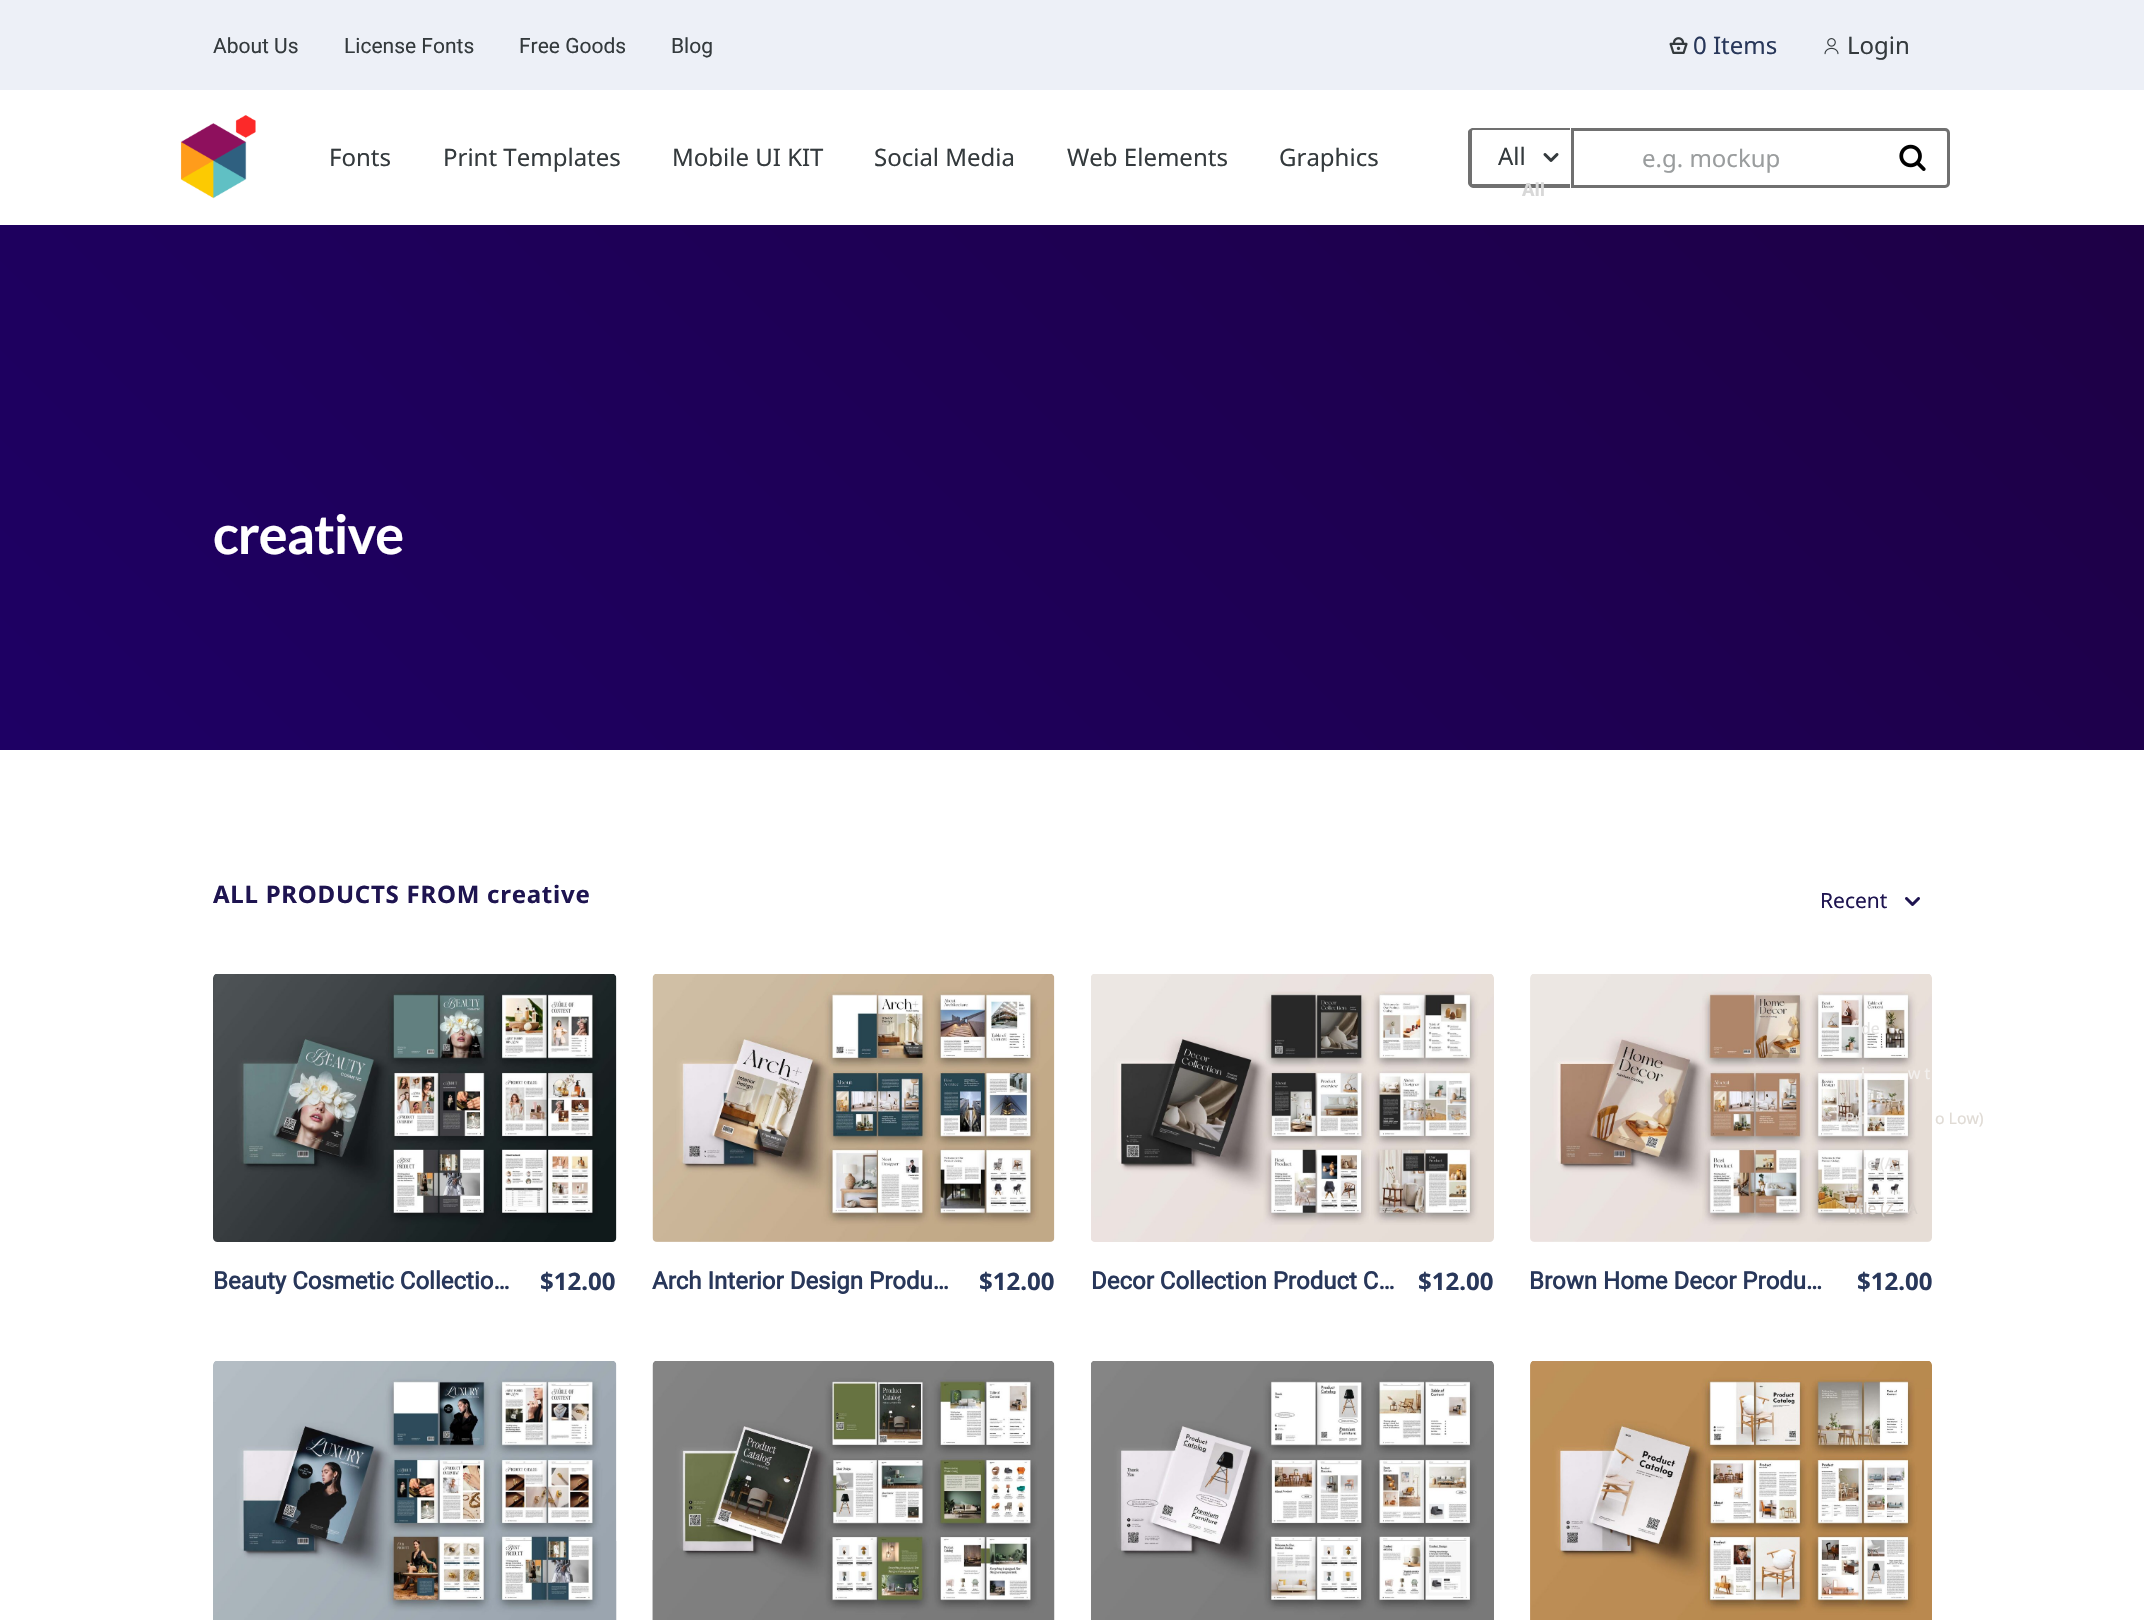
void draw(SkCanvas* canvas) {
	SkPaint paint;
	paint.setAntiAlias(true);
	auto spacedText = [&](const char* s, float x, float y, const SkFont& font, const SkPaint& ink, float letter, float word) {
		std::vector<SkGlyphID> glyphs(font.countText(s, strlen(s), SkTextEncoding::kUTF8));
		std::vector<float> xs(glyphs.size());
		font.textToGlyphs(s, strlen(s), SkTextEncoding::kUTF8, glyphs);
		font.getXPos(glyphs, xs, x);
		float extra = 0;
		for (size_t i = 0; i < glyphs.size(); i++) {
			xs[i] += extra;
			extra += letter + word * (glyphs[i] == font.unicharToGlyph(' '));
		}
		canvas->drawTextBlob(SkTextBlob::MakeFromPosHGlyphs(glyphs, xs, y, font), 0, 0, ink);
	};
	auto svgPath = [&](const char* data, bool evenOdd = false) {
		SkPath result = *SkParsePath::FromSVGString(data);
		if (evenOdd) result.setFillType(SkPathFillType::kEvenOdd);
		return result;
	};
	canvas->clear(0xffffffff);
	paint.setColor(0xffedf0f7);
	canvas->drawRect(SkRect::MakeXYWH(0, 0, 2144, 90), paint);
	SkFont f1(fontMgr->matchFamilyStyle("Roboto", SkFontStyle::Normal()), 21);
	f1.setSubpixel(true);
	paint.setColor(0xff343a3d);
	canvas->drawString("About Us", 213, 53, f1, paint);
	canvas->drawString("License Fonts", 344, 53, f1, paint);
	canvas->drawString("Free Goods", 519, 53, f1, paint);
	canvas->drawString("Blog", 671, 53, f1, paint);
	canvas->drawImageRect(SkImages::DeferredFromEncodedData(SkData::MakeFromFileName("img1.png")), SkRect::MakeXYWH(1669, 37, 19, 17), SkSamplingOptions());
	SkFont f2(fontMgr->matchFamilyStyle("Noto Sans", SkFontStyle::Normal()), 24);
	f2.setSubpixel(true);
	paint.setColor(0xff28375a);
	canvas->drawString("0 Items", 1693, 54, f2, paint);
	canvas->drawImageRect(SkImages::DeferredFromEncodedData(SkData::MakeFromFileName("img2.png")), SkRect::MakeXYWH(1824, 38, 15, 17), SkSamplingOptions());
	paint.setColor(0xff343a3d);
	canvas->drawString("Login", 1847, 54, f2, paint);
	canvas->drawImageRect(SkImages::DeferredFromEncodedData(SkData::MakeFromFileName("img3.png")), SkRect::MakeXYWH(180, 115, 76, 84), SkSamplingOptions());
	canvas->drawString("Fonts", 329, 166, f2, paint);
	canvas->drawString("Print Templates", 443, 166, f2, paint);
	canvas->drawString("Mobile UI KIT", 672, 166, f2, paint);
	canvas->drawString("Social Media", 874, 166, f2, paint);
	canvas->drawString("Web Elements", 1067, 166, f2, paint);
	canvas->drawString("Graphics", 1279, 166, f2, paint);
	paint.setColor(0xff707070);
	canvas->drawPath(svgPath("M1473 128H1570V188H1473C1471 188 1468 185 1468 183V132C1468 130 1471 128 1473 128ZM1473 130H1570V184H1473C1472 184 1472 184 1472 183V132C1472 131 1472 130 1473 130Z", true), paint);
	paint.setColor(0xff343a3d);
	canvas->drawString("All", 1498, 165, f2, paint);
	canvas->drawImageRect(SkImages::DeferredFromEncodedData(SkData::MakeFromFileName("img4.png")), SkRect::MakeXYWH(1543, 153, 16, 9), SkSamplingOptions());
	SkFont f3(fontMgr->matchFamilyStyle("Noto Sans", SkFontStyle::Bold()), 18);
	f3.setSubpixel(true);
	paint.setColor(0xffd8d8d8);
	canvas->drawString("All", 1522, 196, f3, paint);
	paint.setStroke(true);
	paint.setStrokeWidth(3);
	paint.setColor(0xff707070);
	canvas->drawPath(svgPath("M1572.5 129.5H1945C1947 129.5 1948.5 131 1948.5 133V183C1948.5 185 1947 186.5 1945 186.5H1572.5Z"), paint);
	paint.setStroke(false);
	paint.setColor(0xff9a9d9e);
	canvas->drawString("e.g. mockup", 1642, 167, f2, paint);
	canvas->drawImageRect(SkImages::DeferredFromEncodedData(SkData::MakeFromFileName("img5.png")), SkRect::MakeXYWH(1899, 144, 27, 27), SkSamplingOptions());
	{
		const SkColor colors[] = {0xff1e0046, 0xff1e0064};
		const float stops[] = {0, 1};
		const SkPoint ends[] = {{1740, -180}, {405, 1155}};
		paint.setShader(SkGradientShader::MakeLinear(ends, colors, stops, 2, SkTileMode::kClamp));
		paint.setAlpha(255);
	}
	canvas->drawRect(SkRect::MakeXYWH(0, 225, 2144, 525), paint);
	SkFont f4(fontMgr->matchFamilyStyle("Lato", SkFontStyle::Bold()), 54);
	f4.setSubpixel(true);
	paint.setShader(nullptr);
	paint.setColor(0xffffffff);
	spacedText("creative", 213, 554, f4, paint, -1, 0);
	SkFont f5(fontMgr->matchFamilyStyle("Noto Sans", SkFontStyle::Bold()), 24);
	f5.setSubpixel(true);
	paint.setColor(0xff1e1450);
	spacedText("ALL PRODUCTS FROM creative", 213, 903, f5, paint, 0.75, 0);
	SkFont f6(fontMgr->matchFamilyStyle("Noto Sans", SkFontStyle::Normal()), 21);
	f6.setSubpixel(true);
	canvas->drawString("Recent", 1820, 908, f6, paint);
	canvas->drawImageRect(SkImages::DeferredFromEncodedData(SkData::MakeFromFileName("img6.png")), SkRect::MakeXYWH(1905, 897, 15, 9), SkSamplingOptions());
	canvas->drawImageRect(SkImages::DeferredFromEncodedData(SkData::MakeFromFileName("img10.png")), SkRect::MakeXYWH(1530, 974, 402, 268), SkSamplingOptions());
	SkFont f7(fontMgr->matchFamilyStyle("Noto Sans", SkFontStyle::Normal()), 15.75);
	f7.setSubpixel(true);
	paint.setColor(0xffe5e4e3);
	canvas->drawString("de", 1861, 1034, f7, paint);
	paint.setColor(0xfff3f0ee);
	canvas->drawString("i", 1861, 1079, f7, paint);
	canvas->drawString("w t", 1908, 1079, f7, paint);
	paint.setColor(0xffe0dbd5);
	canvas->drawString("Pri", 1845, 1124, f7, paint);
	canvas->drawString("o Low)", 1935, 1124, f7, paint);
	paint.setColor(0xffe5e4e3);
	canvas->drawString("le (A -", 1863, 1169, f7, paint);
	paint.setColor(0xffd7d0ca);
	canvas->drawString("Title (Z - A", 1845, 1214, f7, paint);
	canvas->drawImageRect(SkImages::DeferredFromEncodedData(SkData::MakeFromFileName("img7.png")), SkRect::MakeXYWH(213, 974, 404, 268), SkSamplingOptions());
	SkFont f8(fontMgr->matchFamilyStyle("Roboto", SkFontStyle::Bold()), 24);
	f8.setSubpixel(true);
	paint.setColor(0xff28375a);
	canvas->drawString("Beauty Cosmetic Collectio…", 213, 1289, f8, paint);
	canvas->drawString("$12.00", 540, 1290, f5, paint);
	canvas->drawImageRect(SkImages::DeferredFromEncodedData(SkData::MakeFromFileName("img8.png")), SkRect::MakeXYWH(652, 974, 403, 268), SkSamplingOptions());
	canvas->drawString("Arch Interior Design Produ…", 652, 1289, f8, paint);
	canvas->drawString("$12.00", 979, 1290, f5, paint);
	canvas->drawImageRect(SkImages::DeferredFromEncodedData(SkData::MakeFromFileName("img9.png")), SkRect::MakeXYWH(1091, 974, 403, 268), SkSamplingOptions());
	canvas->drawString("Decor Collection Product C…", 1091, 1289, f8, paint);
	canvas->drawString("$12.00", 1418, 1290, f5, paint);
	canvas->drawString("Brown Home Decor Produ…", 1529, 1289, f8, paint);
	canvas->drawString("$12.00", 1857, 1290, f5, paint);
	canvas->drawImageRect(SkImages::DeferredFromEncodedData(SkData::MakeFromFileName("img11.png")), SkRect::MakeXYWH(213, 1361, 404, 259), SkSamplingOptions());
	canvas->drawImageRect(SkImages::DeferredFromEncodedData(SkData::MakeFromFileName("img12.png")), SkRect::MakeXYWH(652, 1361, 403, 259), SkSamplingOptions());
	canvas->drawImageRect(SkImages::DeferredFromEncodedData(SkData::MakeFromFileName("img13.png")), SkRect::MakeXYWH(1091, 1361, 403, 259), SkSamplingOptions());
	canvas->drawImageRect(SkImages::DeferredFromEncodedData(SkData::MakeFromFileName("img14.png")), SkRect::MakeXYWH(1530, 1361, 402, 259), SkSamplingOptions());
}
